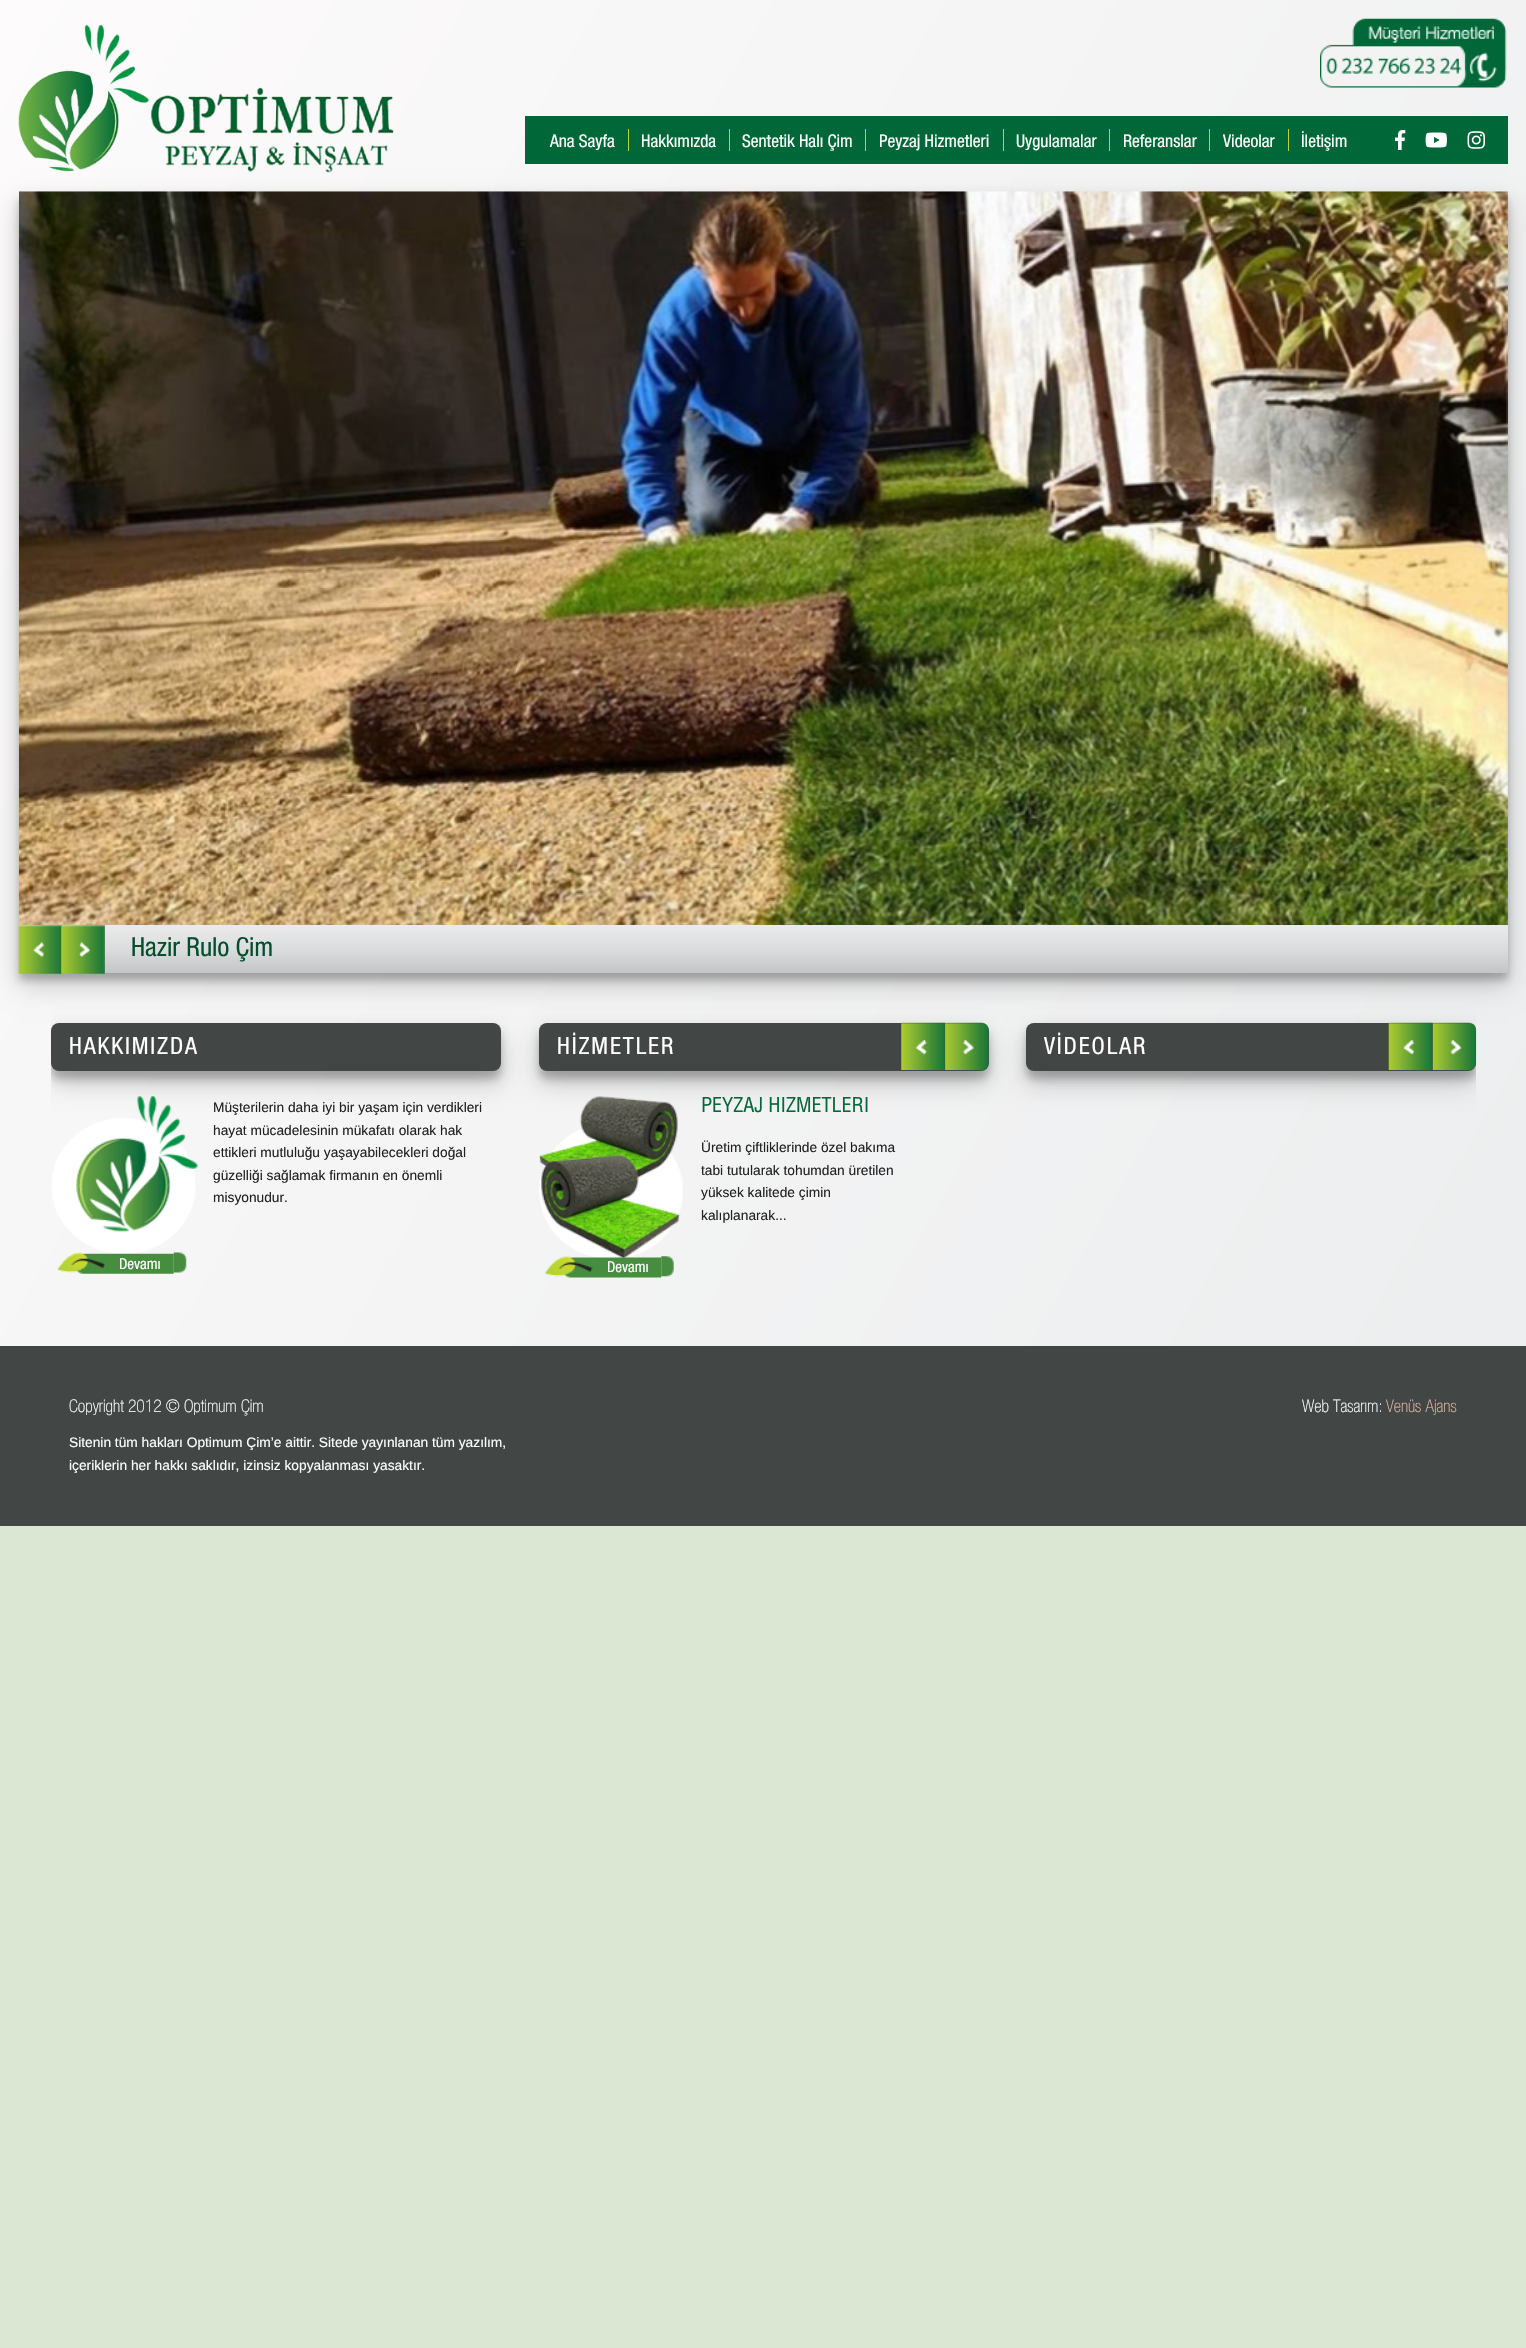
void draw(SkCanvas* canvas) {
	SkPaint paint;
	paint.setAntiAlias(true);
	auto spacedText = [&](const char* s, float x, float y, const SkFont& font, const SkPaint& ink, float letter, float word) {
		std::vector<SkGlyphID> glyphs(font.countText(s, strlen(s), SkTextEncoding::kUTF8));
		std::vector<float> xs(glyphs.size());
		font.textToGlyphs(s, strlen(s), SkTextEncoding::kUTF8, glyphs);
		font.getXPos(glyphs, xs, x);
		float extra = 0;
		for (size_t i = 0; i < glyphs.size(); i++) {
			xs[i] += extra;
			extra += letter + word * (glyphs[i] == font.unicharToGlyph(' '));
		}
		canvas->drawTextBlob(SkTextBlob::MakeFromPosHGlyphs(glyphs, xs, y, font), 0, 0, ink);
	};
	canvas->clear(0xffdbe7d3);
	{
		const SkColor colors[] = {0xfffdfbfb, 0xffebedee};
		const float stops[] = {0, 1};
		const SkPoint ends[] = {{-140, 242}, {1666, 1284}};
		paint.setShader(SkGradientShader::MakeLinear(ends, colors, stops, 2, SkTileMode::kClamp));
		paint.setAlpha(255);
	}
	canvas->drawRect(SkRect::MakeXYWH(0, 0, 1526, 1346), paint);
	canvas->drawImageRect(SkImages::DeferredFromEncodedData(SkData::MakeFromFileName("img1.png")), SkRect::MakeXYWH(18, 25, 376, 148), SkSamplingOptions());
	paint.setShader(nullptr);
	paint.setColor(0xff006738);
	canvas->drawRect(SkRect::MakeXYWH(525, 116, 983, 48), paint);
	paint.setColor(0xffb8d432);
	canvas->drawRect(SkRect::MakeXYWH(628, 129, 1, 22), paint);
	SkFont f1(fontMgr->matchFamilyStyle("Helvetica Neue", SkFontStyle::Normal()), 17.5);
	f1.setSubpixel(true);
	paint.setColor(0xffffffff);
	canvas->drawString("Ana Sayfa", 550, 147, f1, paint);
	paint.setColor(0xffb8d432);
	canvas->drawRect(SkRect::MakeXYWH(729, 129, 1, 22), paint);
	paint.setColor(0xffffffff);
	canvas->drawString("Hakkımızda", 641, 147, f1, paint);
	paint.setColor(0xffb8d432);
	canvas->drawRect(SkRect::MakeXYWH(865, 129, 1, 22), paint);
	paint.setColor(0xffffffff);
	canvas->drawString("Sentetik Halı Çim", 742, 147, f1, paint);
	paint.setColor(0xffb8d432);
	canvas->drawRect(SkRect::MakeXYWH(1003, 129, 1, 22), paint);
	paint.setColor(0xffffffff);
	canvas->drawString("Peyzaj Hizmetleri", 879, 147, f1, paint);
	paint.setColor(0xffb8d432);
	canvas->drawRect(SkRect::MakeXYWH(1109, 129, 1, 22), paint);
	paint.setColor(0xffffffff);
	canvas->drawString("Uygulamalar", 1016, 147, f1, paint);
	paint.setColor(0xffb8d432);
	canvas->drawRect(SkRect::MakeXYWH(1209, 129, 1, 22), paint);
	paint.setColor(0xffffffff);
	canvas->drawString("Referanslar", 1123, 147, f1, paint);
	paint.setColor(0xffb8d432);
	canvas->drawRect(SkRect::MakeXYWH(1288, 129, 1, 22), paint);
	paint.setColor(0xffffffff);
	canvas->drawString("Videolar", 1223, 147, f1, paint);
	canvas->drawString("İletişim", 1301, 147, f1, paint);
	canvas->drawImageRect(SkImages::DeferredFromEncodedData(SkData::MakeFromFileName("img2.png")), SkRect::MakeXYWH(1395, 130, 11, 20), SkSamplingOptions());
	canvas->drawImageRect(SkImages::DeferredFromEncodedData(SkData::MakeFromFileName("img3.png")), SkRect::MakeXYWH(1425, 132, 22, 16), SkSamplingOptions());
	canvas->drawImageRect(SkImages::DeferredFromEncodedData(SkData::MakeFromFileName("img4.png")), SkRect::MakeXYWH(1467, 131, 18, 18), SkSamplingOptions());
	canvas->drawImageRect(SkImages::DeferredFromEncodedData(SkData::MakeFromFileName("img5.png")), SkRect::MakeXYWH(1320, 18, 187, 70), SkSamplingOptions());
	paint.setColor(0x3b000000);
	paint.setMaskFilter(SkMaskFilter::MakeBlur(kNormal_SkBlurStyle, 4));
	canvas->drawRect(SkRect::MakeXYWH(19, 199, 1489, 781), paint);
	paint.setMaskFilter(nullptr);
	paint.setColor(0x30000000);
	paint.setMaskFilter(SkMaskFilter::MakeBlur(kNormal_SkBlurStyle, 12.5));
	canvas->drawRect(SkRect::MakeXYWH(19, 204, 1489, 781), paint);
	paint.setMaskFilter(nullptr);
	{
		const SkColor colors[] = {0xffc4c5c7, 0xffdcdddf, 0xffebebeb};
		const float stops[] = {0, 0.52, 1};
		const SkPoint ends[] = {{763, 973}, {763, 925}};
		paint.setShader(SkGradientShader::MakeLinear(ends, colors, stops, 3, SkTileMode::kClamp));
		paint.setAlpha(255);
	}
	canvas->drawRect(SkRect::MakeXYWH(19, 925, 1489, 48), paint);
	canvas->drawImageRect(SkImages::DeferredFromEncodedData(SkData::MakeFromFileName("img6.png")), SkRect::MakeXYWH(18, 925, 45, 49), SkSamplingOptions());
	canvas->drawImageRect(SkImages::DeferredFromEncodedData(SkData::MakeFromFileName("img7.png")), SkRect::MakeXYWH(61, 925, 44, 49), SkSamplingOptions());
	canvas->drawImageRect(SkImages::DeferredFromEncodedData(SkData::MakeFromFileName("img8.png")), SkRect::MakeXYWH(19, 191, 1489, 734), SkSamplingOptions());
	SkFont f2(fontMgr->matchFamilyStyle("Helvetica Neue", SkFontStyle::Normal()), 26.25);
	f2.setSubpixel(true);
	paint.setShader(nullptr);
	paint.setColor(0xff01502c);
	canvas->drawString("Hazir Rulo Çim", 131, 956, f2, paint);
	canvas->save();
	canvas->clipRect(SkRect::MakeXYWH(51, 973, 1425, 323));
	paint.setColor(0x3b000000);
	paint.setMaskFilter(SkMaskFilter::MakeBlur(kNormal_SkBlurStyle, 4));
	canvas->drawRoundRect(SkRect::MakeXYWH(51, 1030, 450, 49), 8, 8, paint);
	paint.setMaskFilter(nullptr);
	paint.setColor(0x30000000);
	paint.setMaskFilter(SkMaskFilter::MakeBlur(kNormal_SkBlurStyle, 12.5));
	canvas->drawRoundRect(SkRect::MakeXYWH(51, 1035, 450, 49), 8, 8, paint);
	paint.setMaskFilter(nullptr);
	canvas->restore();
	paint.setColor(0xff424644);
	canvas->drawRoundRect(SkRect::MakeXYWH(51, 1023, 450, 48), 8, 8, paint);
	SkFont f3(fontMgr->matchFamilyStyle("Helvetica Neue", SkFontStyle::Normal()), 23.75);
	f3.setSubpixel(true);
	paint.setColor(0xffffffff);
	spacedText("HAKKIMIZDA", 69, 1054, f3, paint, 1.9, 0);
	SkFont f4(fontMgr->matchFamilyStyle("Liberation Sans", SkFontStyle::Normal()), 13.75);
	f4.setSubpixel(true);
	paint.setColor(0xff222222);
	canvas->drawString("Müşterilerin daha iyi bir yaşam için verdikleri", 213, 1112, f4, paint);
	canvas->drawString("hayat mücadelesinin mükafatı olarak hak", 213, 1135, f4, paint);
	canvas->drawString("ettikleri mutluluğu yaşayabilecekleri doğal", 213, 1157, f4, paint);
	canvas->drawString("güzelliği sağlamak firmanın en önemli", 213, 1180, f4, paint);
	canvas->drawString("misyonudur.", 213, 1202, f4, paint);
	canvas->drawImageRect(SkImages::DeferredFromEncodedData(SkData::MakeFromFileName("img9.png")), SkRect::MakeXYWH(52, 1096, 146, 158), SkSamplingOptions());
	canvas->drawImageRect(SkImages::DeferredFromEncodedData(SkData::MakeFromFileName("img10.png")), SkRect::MakeXYWH(173, 1252, 14, 21), SkSamplingOptions());
	canvas->drawImageRect(SkImages::DeferredFromEncodedData(SkData::MakeFromFileName("img11.png")), SkRect::MakeXYWH(57, 1252, 117, 22), SkSamplingOptions());
	SkFont f5(fontMgr->matchFamilyStyle("Helvetica Neue", SkFontStyle::Normal()), 15);
	f5.setSubpixel(true);
	paint.setColor(0xffffffff);
	canvas->drawString("Devamı", 119, 1269, f5, paint);
	paint.setColor(0x3b000000);
	paint.setMaskFilter(SkMaskFilter::MakeBlur(kNormal_SkBlurStyle, 4));
	canvas->drawRoundRect(SkRect::MakeXYWH(539, 1030, 450, 49), 8, 8, paint);
	paint.setMaskFilter(nullptr);
	paint.setColor(0x30000000);
	paint.setMaskFilter(SkMaskFilter::MakeBlur(kNormal_SkBlurStyle, 12.5));
	canvas->drawRoundRect(SkRect::MakeXYWH(539, 1035, 450, 49), 8, 8, paint);
	paint.setMaskFilter(nullptr);
	paint.setColor(0xff424644);
	canvas->drawRoundRect(SkRect::MakeXYWH(539, 1023, 450, 48), 8, 8, paint);
	paint.setColor(0xffffffff);
	spacedText("HİZMETLER", 557, 1054, f3, paint, 1.9, 0);
	canvas->drawImageRect(SkImages::DeferredFromEncodedData(SkData::MakeFromFileName("img12.png")), SkRect::MakeXYWH(901, 1022, 44, 48), SkSamplingOptions());
	canvas->save();
	canvas->clipRect(SkRect::MakeXYWH(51, 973, 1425, 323));
	paint.setColor(0x30000000);
	paint.setMaskFilter(SkMaskFilter::MakeBlur(kNormal_SkBlurStyle, 12.5));
	canvas->drawRoundRect(SkRect::MakeXYWH(1026, 1035, 450, 49), 8, 8, paint);
	paint.setMaskFilter(nullptr);
	canvas->restore();
	canvas->drawImageRect(SkImages::DeferredFromEncodedData(SkData::MakeFromFileName("img13.png")), SkRect::MakeXYWH(945, 1022, 44, 48), SkSamplingOptions());
	canvas->save();
	canvas->clipRect(SkRect::MakeXYWH(539, 1096, 375, 200));
	SkFont f6(fontMgr->matchFamilyStyle("Helvetica", SkFontStyle::Normal()), 20);
	f6.setSubpixel(true);
	paint.setColor(0xff016839);
	canvas->drawString("PEYZAJ HİZMETLERİ", 701, 1112, f6, paint);
	canvas->restore();
	paint.setColor(0xff222222);
	canvas->drawString("Üretim çiftliklerinde özel bakıma", 701, 1152, f4, paint);
	canvas->drawString("tabi tutularak tohumdan üretilen", 701, 1175, f4, paint);
	canvas->drawString("yüksek kalitede çimin", 701, 1197, f4, paint);
	canvas->drawString("kalıplanarak...", 701, 1220, f4, paint);
	canvas->drawImageRect(SkImages::DeferredFromEncodedData(SkData::MakeFromFileName("img14.png")), SkRect::MakeXYWH(539, 1096, 144, 162), SkSamplingOptions());
	canvas->drawImageRect(SkImages::DeferredFromEncodedData(SkData::MakeFromFileName("img15.png")), SkRect::MakeXYWH(661, 1256, 13, 21), SkSamplingOptions());
	canvas->drawImageRect(SkImages::DeferredFromEncodedData(SkData::MakeFromFileName("img16.png")), SkRect::MakeXYWH(545, 1256, 117, 22), SkSamplingOptions());
	paint.setColor(0xffffffff);
	canvas->drawString("Devamı", 607, 1272, f5, paint);
	canvas->save();
	canvas->clipRect(SkRect::MakeXYWH(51, 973, 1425, 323));
	paint.setColor(0x3b000000);
	paint.setMaskFilter(SkMaskFilter::MakeBlur(kNormal_SkBlurStyle, 4));
	canvas->drawRoundRect(SkRect::MakeXYWH(1026, 1030, 450, 49), 8, 8, paint);
	paint.setMaskFilter(nullptr);
	canvas->restore();
	paint.setColor(0xff424644);
	canvas->drawRoundRect(SkRect::MakeXYWH(1026, 1023, 450, 48), 8, 8, paint);
	paint.setColor(0xffffffff);
	spacedText("VİDEOLAR", 1044, 1054, f3, paint, 1.9, 0);
	canvas->drawImageRect(SkImages::DeferredFromEncodedData(SkData::MakeFromFileName("img18.png")), SkRect::MakeXYWH(1432, 1022, 45, 48), SkSamplingOptions());
	canvas->drawImageRect(SkImages::DeferredFromEncodedData(SkData::MakeFromFileName("img17.png")), SkRect::MakeXYWH(1388, 1022, 45, 48), SkSamplingOptions());
	paint.setColor(0xff424644);
	canvas->drawRect(SkRect::MakeXYWH(0, 1346, 1526, 180), paint);
	SkFont f7(fontMgr->matchFamilyStyle("Helvetica Neue", SkFontStyle(200, SkFontStyle::kNormal_Width, SkFontStyle::kUpright_Slant)), 17.5);
	f7.setSubpixel(true);
	paint.setColor(0xffffffff);
	canvas->drawString("Copyright 2012 © Optimum Çim", 69, 1412, f7, paint);
	canvas->drawString("Sitenin tüm hakları Optimum Çim’e aittir. Sitede yayınlanan tüm yazılım,", 69, 1447, f4, paint);
	canvas->drawString("içeriklerin her hakkı saklıdır, izinsiz kopyalanması yasaktır.", 69, 1470, f4, paint);
	canvas->drawString("Web Tasarım:", 1302, 1412, f7, paint);
	paint.setColor(0xffe3b6a6);
	canvas->drawString("Venüs Ajans", 1386, 1412, f7, paint);
}
